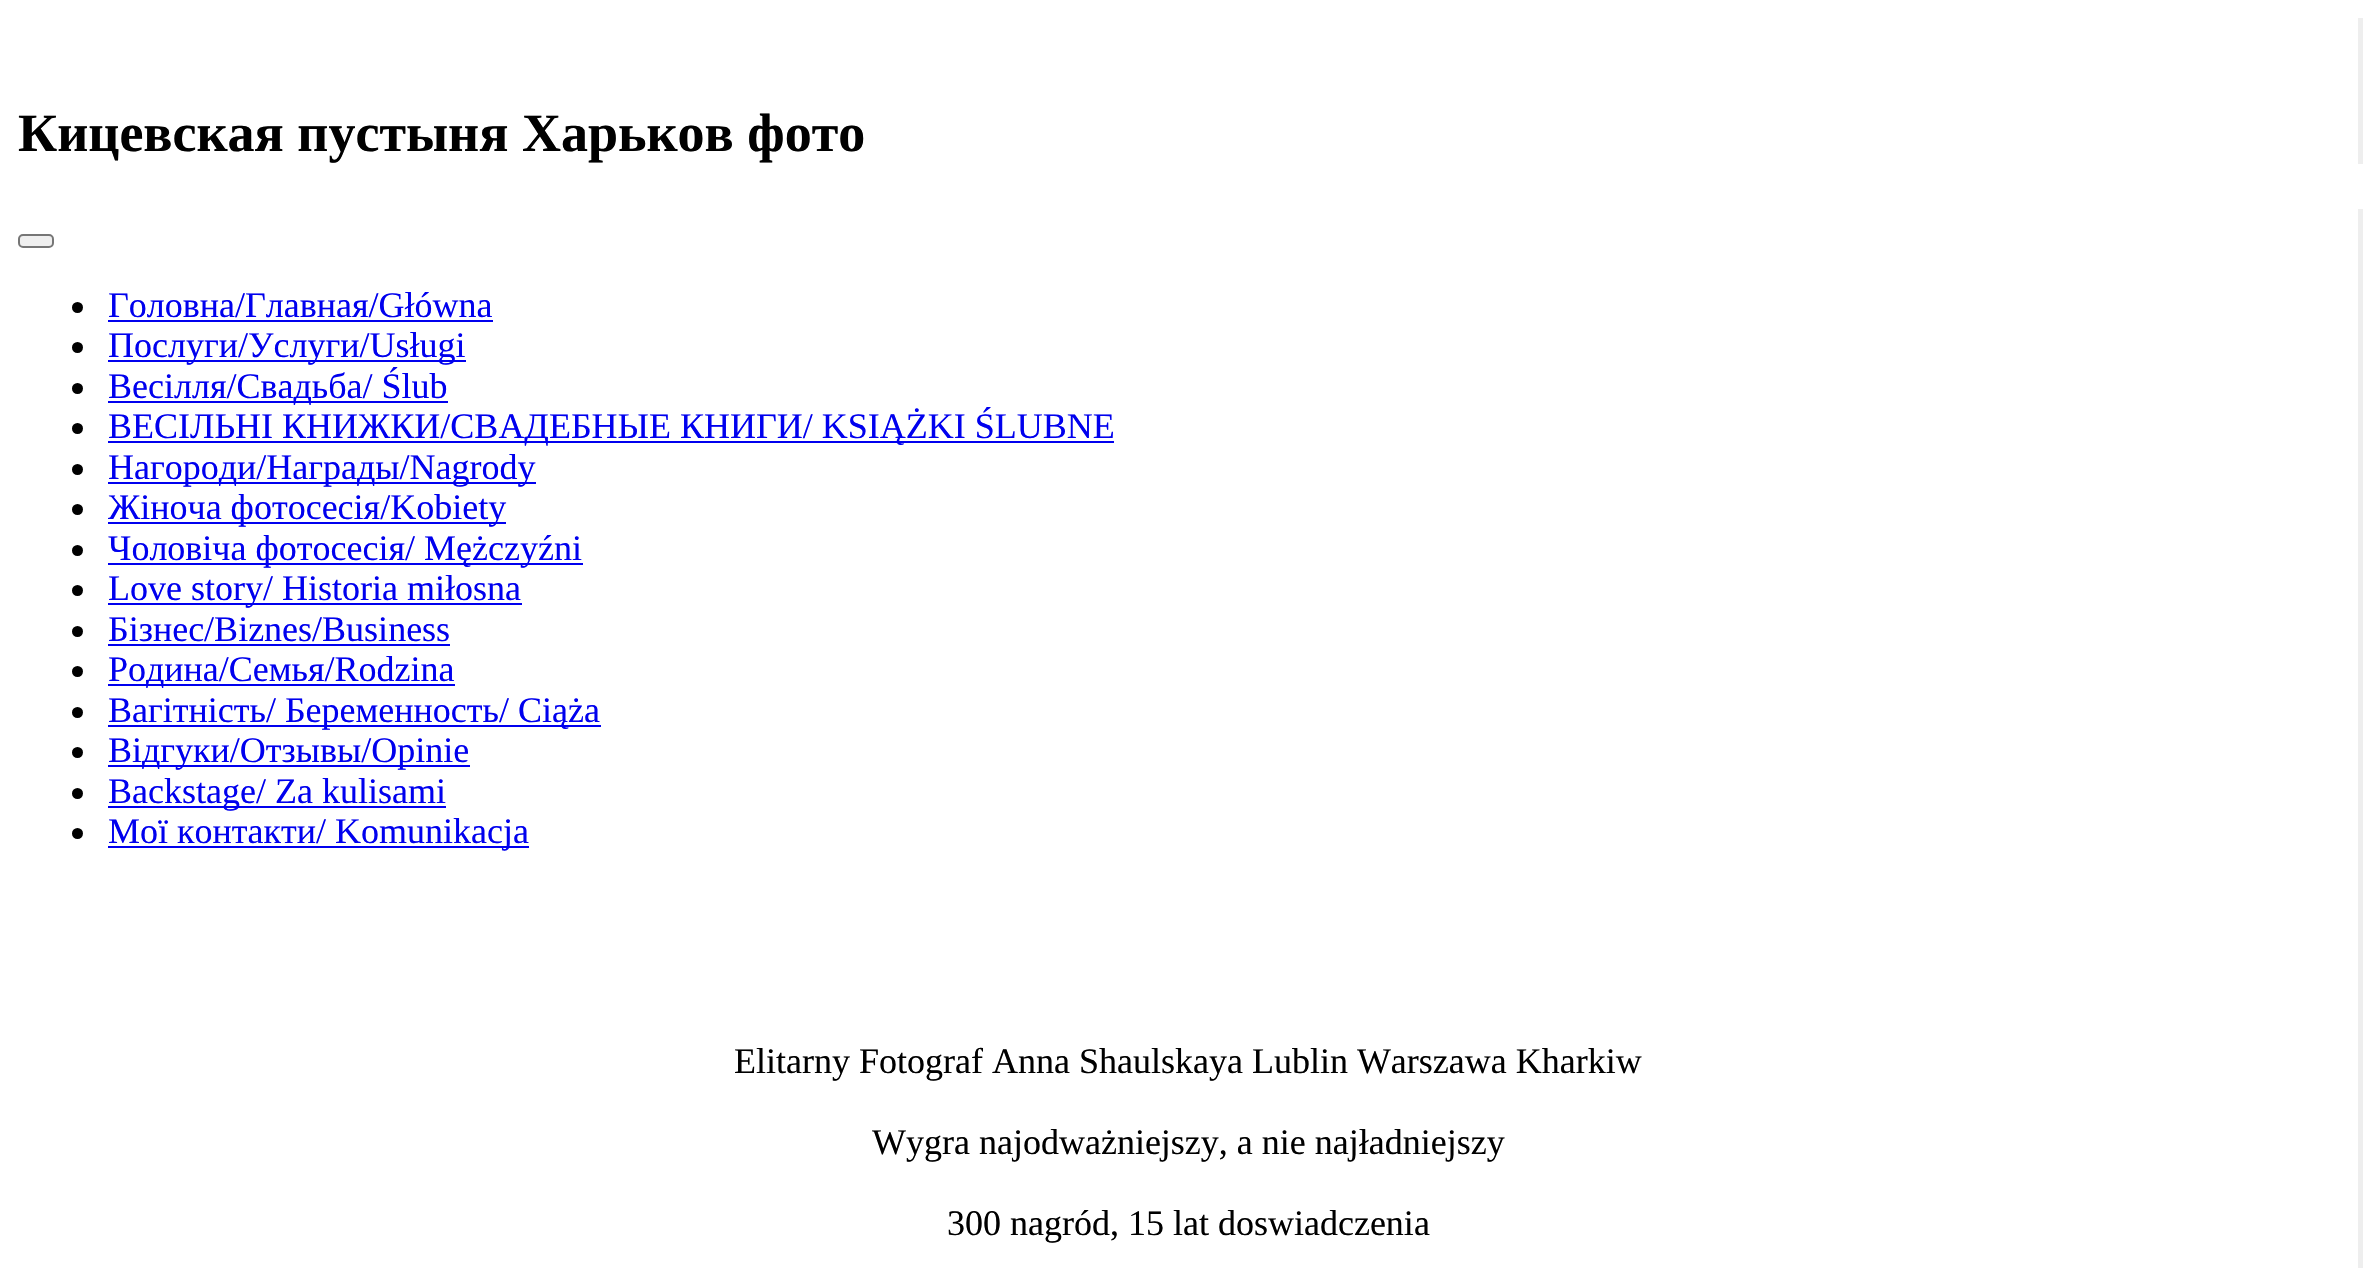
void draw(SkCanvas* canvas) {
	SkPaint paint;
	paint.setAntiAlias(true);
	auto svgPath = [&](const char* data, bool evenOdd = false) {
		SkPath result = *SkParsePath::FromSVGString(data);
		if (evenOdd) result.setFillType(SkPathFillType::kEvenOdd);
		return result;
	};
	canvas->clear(0xffffffff);
	paint.setColor(0xffeeeeee);
	canvas->drawRect(SkRect::MakeXYWH(2358, 18, 5, 146), paint);
	SkFont f1(fontMgr->matchFamilyStyle("Liberation Serif", SkFontStyle::Bold()), 54);
	f1.setSubpixel(true);
	paint.setColor(0xff000000);
	canvas->drawString("Кицевская пустыня Харьков фото", 18, 151, f1, paint);
	paint.setColor(0xffeeeeee);
	canvas->drawPath(svgPath("M23 209H2358V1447H23H2363V209Z"), paint);
	paint.setColor(0xffefefef);
	canvas->drawRoundRect(SkRect::MakeXYWH(19, 235, 34, 12), 4, 4, paint);
	paint.setStroke(true);
	paint.setStrokeWidth(2);
	paint.setColor(0xff767676);
	canvas->drawRoundRect(SkRect::MakeXYWH(19, 235, 34, 12), 4, 4, paint);
	paint.setStroke(false);
	paint.setColor(0xff000000);
	canvas->drawCircle(77.5, 307.5, 5.5, paint);
	SkFont f2(fontMgr->matchFamilyStyle("Liberation Serif", SkFontStyle::Normal()), 36);
	f2.setSubpixel(true);
	paint.setColor(0xff0000ee);
	canvas->drawString("Головна/Главная/Główna", 108, 317, f2, paint);
	canvas->drawRect(SkRect::MakeXYWH(108, 320, 385, 2), paint);
	paint.setColor(0xff000000);
	canvas->drawCircle(77.5, 347.5, 5.5, paint);
	paint.setColor(0xff0000ee);
	canvas->drawRect(SkRect::MakeXYWH(108, 360, 358, 2), paint);
	canvas->drawString("Послуги/Услуги/Usługi", 108, 357, f2, paint);
	paint.setColor(0xff000000);
	canvas->drawCircle(77.5, 388.5, 5.5, paint);
	paint.setColor(0xff0000ee);
	canvas->drawRect(SkRect::MakeXYWH(108, 401, 340, 2), paint);
	canvas->drawString("Весілля/Свадьба/ Ślub", 108, 398, f2, paint);
	paint.setColor(0xff000000);
	canvas->drawCircle(77.5, 428.5, 5.5, paint);
	paint.setColor(0xff0000ee);
	canvas->drawRect(SkRect::MakeXYWH(108, 441, 1006, 2), paint);
	canvas->drawString("ВЕСІЛЬНІ КНИЖКИ/СВАДЕБНЫЕ КНИГИ/ KSIĄŻKI ŚLUBNE", 108, 438, f2, paint);
	paint.setColor(0xff000000);
	canvas->drawCircle(77.5, 469.5, 5.5, paint);
	paint.setColor(0xff0000ee);
	canvas->drawRect(SkRect::MakeXYWH(108, 482, 428, 2), paint);
	canvas->drawString("Нагороди/Награды/Nagrody", 108, 479, f2, paint);
	paint.setColor(0xff000000);
	canvas->drawCircle(77.5, 509.5, 5.5, paint);
	paint.setColor(0xff0000ee);
	canvas->drawRect(SkRect::MakeXYWH(108, 522, 398, 2), paint);
	canvas->drawString("Жіноча фотосесія/Kobiety", 108, 519, f2, paint);
	paint.setColor(0xff000000);
	canvas->drawCircle(77.5, 550.5, 5.5, paint);
	paint.setColor(0xff0000ee);
	canvas->drawRect(SkRect::MakeXYWH(108, 563, 475, 2), paint);
	canvas->drawString("Чоловіча фотосесія/ Mężczyźni", 108, 560, f2, paint);
	paint.setColor(0xff000000);
	canvas->drawCircle(77.5, 590.5, 5.5, paint);
	paint.setColor(0xff0000ee);
	canvas->drawRect(SkRect::MakeXYWH(108, 603, 414, 2), paint);
	canvas->drawString("Love story/ Historia miłosna", 108, 600, f2, paint);
	paint.setColor(0xff000000);
	canvas->drawCircle(77.5, 631.5, 5.5, paint);
	paint.setColor(0xff0000ee);
	canvas->drawString("Бізнес/Biznes/Business", 108, 641, f2, paint);
	canvas->drawRect(SkRect::MakeXYWH(108, 644, 342, 2), paint);
	paint.setColor(0xff000000);
	canvas->drawCircle(77.5, 671.5, 5.5, paint);
	paint.setColor(0xff0000ee);
	canvas->drawRect(SkRect::MakeXYWH(108, 684, 347, 2), paint);
	canvas->drawString("Родина/Семья/Rodzina", 108, 681, f2, paint);
	paint.setColor(0xff000000);
	canvas->drawCircle(77.5, 712.5, 5.5, paint);
	paint.setColor(0xff0000ee);
	canvas->drawRect(SkRect::MakeXYWH(108, 725, 493, 2), paint);
	canvas->drawString("Вагітність/ Беременность/ Ciąża", 108, 722, f2, paint);
	paint.setColor(0xff000000);
	canvas->drawCircle(77.5, 752.5, 5.5, paint);
	paint.setColor(0xff0000ee);
	canvas->drawRect(SkRect::MakeXYWH(108, 765, 362, 2), paint);
	canvas->drawString("Відгуки/Отзывы/Opinie", 108, 762, f2, paint);
	paint.setColor(0xff000000);
	canvas->drawCircle(77.5, 793.5, 5.5, paint);
	paint.setColor(0xff0000ee);
	canvas->drawRect(SkRect::MakeXYWH(108, 806, 338, 2), paint);
	canvas->drawString("Backstage/ Za kulisami", 108, 803, f2, paint);
	paint.setColor(0xff000000);
	canvas->drawCircle(77.5, 833.5, 5.5, paint);
	paint.setColor(0xff0000ee);
	canvas->drawRect(SkRect::MakeXYWH(108, 846, 421, 2), paint);
	canvas->drawString("Мої контакти/ Komunikacja", 108, 843, f2, paint);
	paint.setColor(0xff000000);
	canvas->drawString("Elitarny Fotograf Anna Shaulskaya Lublin Warszawa Kharkiw", 734, 1073, f2, paint);
	canvas->drawString("Wygra najodważniejszy, a nie najładniejszy", 872, 1154, f2, paint);
	canvas->drawString("300 nagród, 15 lat doswiadczenia", 947, 1235, f2, paint);
}
